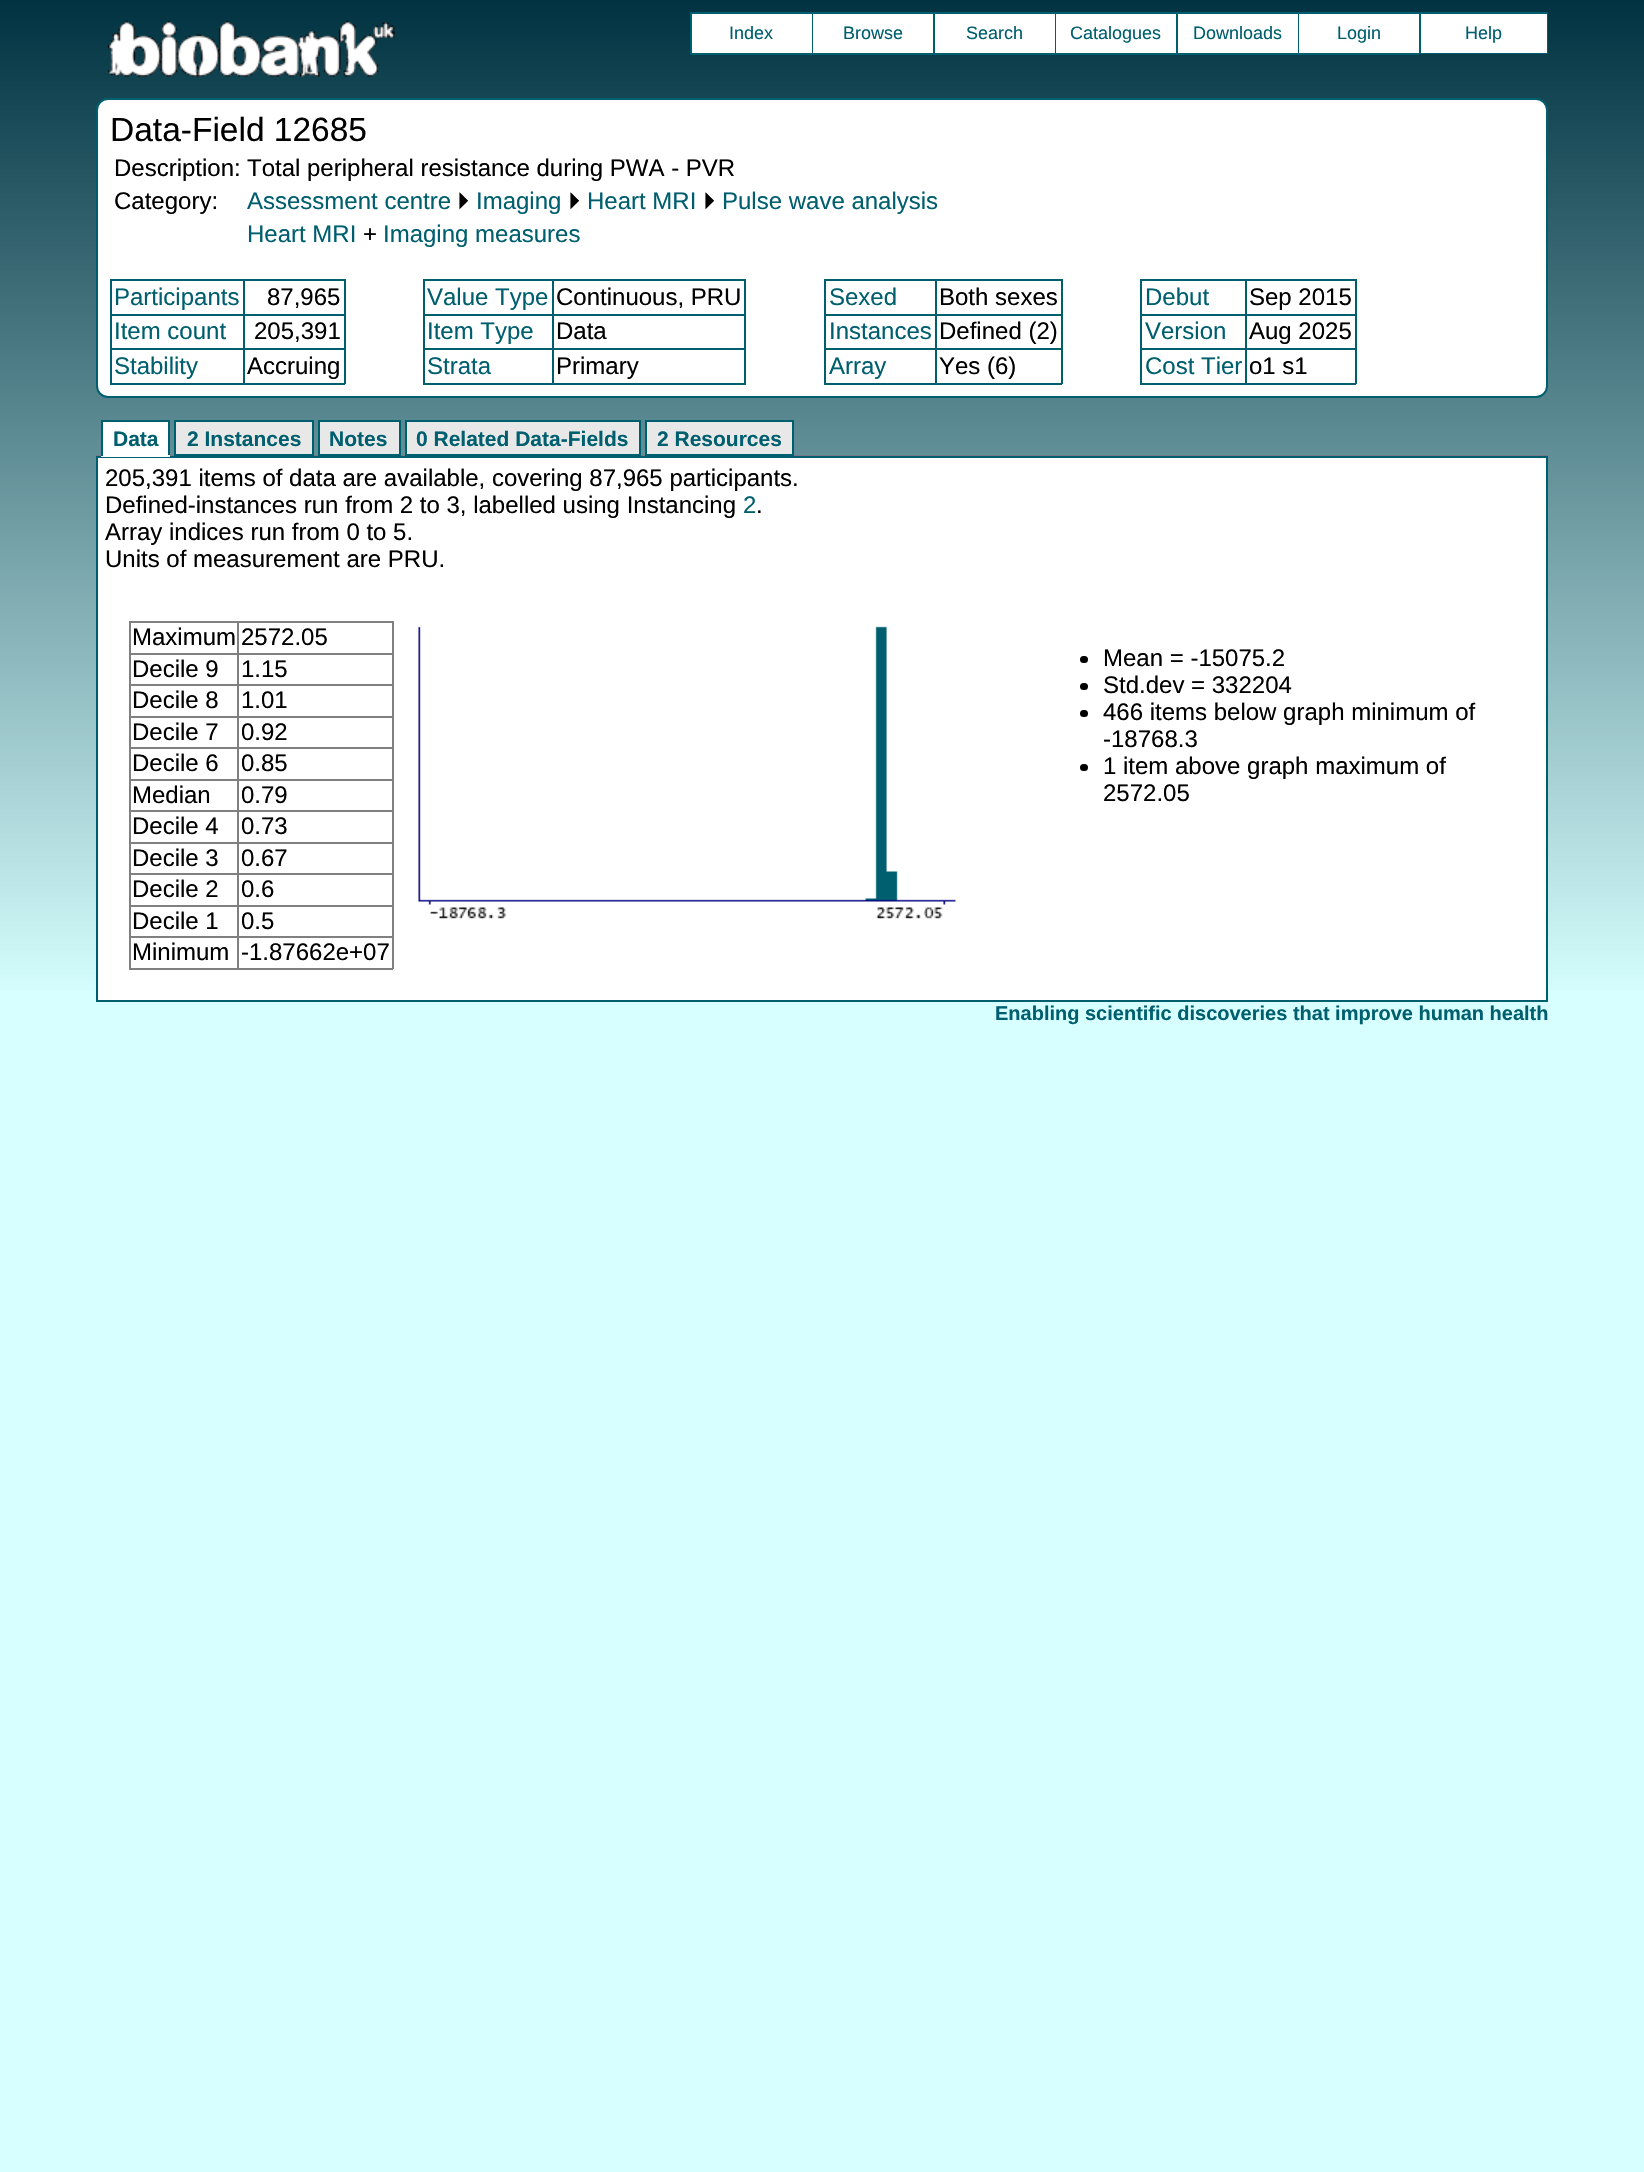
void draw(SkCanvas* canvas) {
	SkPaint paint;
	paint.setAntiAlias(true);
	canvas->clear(0xffd7ffff);
	{
		const SkColor colors[] = {0xff003241, 0xffd7ffff};
		const float stops[] = {0, 1};
		const SkPoint ends[] = {{0, 0}, {0, 1002}};
		paint.setShader(SkGradientShader::MakeLinear(ends, colors, stops, 2, SkTileMode::kClamp));
		paint.setAlpha(255);
	}
	canvas->drawRect(SkRect::MakeXYWH(0, 0, 1644, 990), paint);
	canvas->drawImageRect(SkImages::DeferredFromEncodedData(SkData::MakeFromFileName("img1.png")), SkRect::MakeXYWH(107, 20, 288, 57), SkSamplingOptions());
	paint.setShader(nullptr);
	paint.setColor(0xff005f6f);
	canvas->drawRect(SkRect::MakeXYWH(690, 12, 729, 2), paint);
	canvas->drawRect(SkRect::MakeXYWH(690, 53, 729, 2), paint);
	canvas->drawRect(SkRect::MakeXYWH(690, 12, 2, 42), paint);
	paint.setColor(0xffffffff);
	canvas->drawRect(SkRect::MakeXYWH(692, 14, 120, 39), paint);
	SkFont f1(fontMgr->matchFamilyStyle("Liberation Sans", SkFontStyle::Normal()), 18);
	f1.setSubpixel(true);
	paint.setColor(0xff005f6f);
	canvas->drawString("Index", 729, 39, f1, paint);
	canvas->drawRect(SkRect::MakeXYWH(812, 12, 2, 42), paint);
	paint.setColor(0xffffffff);
	canvas->drawRect(SkRect::MakeXYWH(813, 14, 120, 39), paint);
	paint.setColor(0xff005f6f);
	canvas->drawString("Browse", 843, 39, f1, paint);
	canvas->drawRect(SkRect::MakeXYWH(933, 12, 2, 42), paint);
	paint.setColor(0xffffffff);
	canvas->drawRect(SkRect::MakeXYWH(935, 14, 120, 39), paint);
	paint.setColor(0xff005f6f);
	canvas->drawString("Search", 966, 39, f1, paint);
	canvas->drawRect(SkRect::MakeXYWH(1055, 12, 2, 42), paint);
	paint.setColor(0xffffffff);
	canvas->drawRect(SkRect::MakeXYWH(1056, 14, 120, 39), paint);
	paint.setColor(0xff005f6f);
	canvas->drawString("Catalogues", 1070, 39, f1, paint);
	canvas->drawRect(SkRect::MakeXYWH(1176, 12, 2, 42), paint);
	paint.setColor(0xffffffff);
	canvas->drawRect(SkRect::MakeXYWH(1178, 14, 120, 39), paint);
	paint.setColor(0xff005f6f);
	canvas->drawString("Downloads", 1193, 39, f1, paint);
	canvas->drawRect(SkRect::MakeXYWH(1298, 12, 2, 42), paint);
	paint.setColor(0xffffffff);
	canvas->drawRect(SkRect::MakeXYWH(1299, 14, 120, 39), paint);
	paint.setColor(0xff005f6f);
	canvas->drawString("Login", 1337, 39, f1, paint);
	paint.setStroke(true);
	paint.setStrokeWidth(2);
	canvas->drawRect(SkRect::MakeXYWH(1420, 13, 127, 40), paint);
	paint.setStroke(false);
	paint.setColor(0xffffffff);
	canvas->drawRect(SkRect::MakeXYWH(1421, 14, 126, 39), paint);
	paint.setColor(0xff005f6f);
	canvas->drawString("Help", 1465, 39, f1, paint);
	paint.setColor(0xffffffff);
	canvas->drawRoundRect(SkRect::MakeXYWH(97, 99, 1450, 298), 11, 11, paint);
	paint.setStroke(true);
	paint.setColor(0xff005f6f);
	canvas->drawRoundRect(SkRect::MakeXYWH(97, 99, 1450, 298), 11, 11, paint);
	SkFont f2(fontMgr->matchFamilyStyle("Liberation Sans", SkFontStyle::Normal()), 33.5);
	f2.setSubpixel(true);
	paint.setStroke(false);
	paint.setColor(0xff000000);
	canvas->drawString("Data-Field 12685", 110, 141, f2, paint);
	SkFont f3(fontMgr->matchFamilyStyle("Liberation Sans", SkFontStyle::Normal()), 24);
	f3.setSubpixel(true);
	canvas->drawString("Description:", 114, 176, f3, paint);
	canvas->drawString("Total peripheral resistance during PWA - PVR", 247, 176, f3, paint);
	canvas->drawString("Category:", 114, 209, f3, paint);
	paint.setColor(0xff005f6f);
	canvas->drawString("Assessment centre", 247, 209, f3, paint);
	SkFont f4(fontMgr->matchFamilyStyle("FreeSans", SkFontStyle::Normal()), 24);
	f4.setSubpixel(true);
	paint.setColor(0xff000000);
	canvas->drawString("⏵", 457, 209, f4, paint);
	paint.setColor(0xff005f6f);
	canvas->drawString("Imaging", 476, 209, f3, paint);
	paint.setColor(0xff000000);
	canvas->drawString("⏵", 568, 209, f4, paint);
	paint.setColor(0xff005f6f);
	canvas->drawString("Heart MRI", 587, 209, f3, paint);
	paint.setColor(0xff000000);
	canvas->drawString("⏵", 703, 209, f4, paint);
	paint.setColor(0xff005f6f);
	canvas->drawString("Pulse wave analysis", 722, 209, f3, paint);
	canvas->drawString("Heart MRI", 247, 242, f3, paint);
	paint.setColor(0xff000000);
	canvas->drawString("+", 363, 242, f3, paint);
	paint.setColor(0xff005f6f);
	canvas->drawString("Imaging measures", 383, 242, f3, paint);
	canvas->drawRect(SkRect::MakeXYWH(243, 279, 102, 2), paint);
	canvas->drawRect(SkRect::MakeXYWH(243, 314, 102, 2), paint);
	canvas->drawRect(SkRect::MakeXYWH(243, 348, 102, 2), paint);
	canvas->drawRect(SkRect::MakeXYWH(344, 348, 2, 36), paint);
	canvas->drawRect(SkRect::MakeXYWH(243, 383, 102, 2), paint);
	canvas->drawRect(SkRect::MakeXYWH(243, 348, 2, 36), paint);
	canvas->drawRect(SkRect::MakeXYWH(110, 348, 135, 2), paint);
	canvas->drawRect(SkRect::MakeXYWH(243, 314, 2, 36), paint);
	canvas->drawRect(SkRect::MakeXYWH(110, 314, 135, 2), paint);
	canvas->drawRect(SkRect::MakeXYWH(243, 279, 2, 36), paint);
	canvas->drawRect(SkRect::MakeXYWH(110, 279, 135, 2), paint);
	canvas->drawRect(SkRect::MakeXYWH(110, 383, 135, 2), paint);
	canvas->drawRect(SkRect::MakeXYWH(110, 348, 2, 36), paint);
	canvas->drawRect(SkRect::MakeXYWH(110, 314, 2, 36), paint);
	canvas->drawRect(SkRect::MakeXYWH(110, 279, 2, 36), paint);
	canvas->drawString("Participants", 114, 305, f3, paint);
	canvas->drawRect(SkRect::MakeXYWH(344, 314, 2, 36), paint);
	canvas->drawRect(SkRect::MakeXYWH(344, 279, 2, 36), paint);
	paint.setColor(0xff000000);
	canvas->drawString("87,965", 267, 305, f3, paint);
	paint.setColor(0xff005f6f);
	canvas->drawRect(SkRect::MakeXYWH(552, 279, 194, 2), paint);
	canvas->drawRect(SkRect::MakeXYWH(552, 314, 194, 2), paint);
	canvas->drawRect(SkRect::MakeXYWH(552, 348, 194, 2), paint);
	canvas->drawRect(SkRect::MakeXYWH(744, 348, 2, 36), paint);
	canvas->drawRect(SkRect::MakeXYWH(552, 383, 194, 2), paint);
	canvas->drawRect(SkRect::MakeXYWH(552, 348, 2, 36), paint);
	canvas->drawRect(SkRect::MakeXYWH(423, 348, 131, 2), paint);
	canvas->drawRect(SkRect::MakeXYWH(552, 314, 2, 36), paint);
	canvas->drawRect(SkRect::MakeXYWH(423, 314, 131, 2), paint);
	canvas->drawRect(SkRect::MakeXYWH(552, 279, 2, 36), paint);
	canvas->drawRect(SkRect::MakeXYWH(423, 279, 131, 2), paint);
	canvas->drawRect(SkRect::MakeXYWH(423, 383, 131, 2), paint);
	canvas->drawRect(SkRect::MakeXYWH(423, 348, 2, 36), paint);
	canvas->drawRect(SkRect::MakeXYWH(423, 314, 2, 36), paint);
	canvas->drawRect(SkRect::MakeXYWH(423, 279, 2, 36), paint);
	canvas->drawString("Value Type", 427, 305, f3, paint);
	canvas->drawRect(SkRect::MakeXYWH(744, 314, 2, 36), paint);
	canvas->drawRect(SkRect::MakeXYWH(744, 279, 2, 36), paint);
	paint.setColor(0xff000000);
	canvas->drawString("Continuous, PRU", 556, 305, f3, paint);
	paint.setColor(0xff005f6f);
	canvas->drawRect(SkRect::MakeXYWH(935, 279, 127, 2), paint);
	canvas->drawRect(SkRect::MakeXYWH(935, 314, 127, 2), paint);
	canvas->drawRect(SkRect::MakeXYWH(935, 348, 127, 2), paint);
	canvas->drawRect(SkRect::MakeXYWH(1061, 348, 2, 36), paint);
	canvas->drawRect(SkRect::MakeXYWH(935, 383, 127, 2), paint);
	canvas->drawRect(SkRect::MakeXYWH(935, 348, 2, 36), paint);
	canvas->drawRect(SkRect::MakeXYWH(824, 348, 112, 2), paint);
	canvas->drawRect(SkRect::MakeXYWH(935, 314, 2, 36), paint);
	canvas->drawRect(SkRect::MakeXYWH(824, 314, 112, 2), paint);
	canvas->drawRect(SkRect::MakeXYWH(935, 279, 2, 36), paint);
	canvas->drawRect(SkRect::MakeXYWH(824, 279, 112, 2), paint);
	canvas->drawRect(SkRect::MakeXYWH(824, 383, 112, 2), paint);
	canvas->drawRect(SkRect::MakeXYWH(824, 348, 2, 36), paint);
	canvas->drawRect(SkRect::MakeXYWH(824, 314, 2, 36), paint);
	canvas->drawRect(SkRect::MakeXYWH(824, 279, 2, 36), paint);
	canvas->drawString("Sexed", 829, 305, f3, paint);
	canvas->drawRect(SkRect::MakeXYWH(1061, 314, 2, 36), paint);
	canvas->drawRect(SkRect::MakeXYWH(1061, 279, 2, 36), paint);
	paint.setColor(0xff000000);
	canvas->drawString("Both sexes", 939, 305, f3, paint);
	paint.setColor(0xff005f6f);
	canvas->drawRect(SkRect::MakeXYWH(1245, 279, 111, 2), paint);
	canvas->drawRect(SkRect::MakeXYWH(1245, 314, 111, 2), paint);
	canvas->drawRect(SkRect::MakeXYWH(1245, 348, 111, 2), paint);
	canvas->drawRect(SkRect::MakeXYWH(1355, 348, 2, 36), paint);
	canvas->drawRect(SkRect::MakeXYWH(1245, 383, 111, 2), paint);
	canvas->drawRect(SkRect::MakeXYWH(1245, 348, 2, 36), paint);
	canvas->drawRect(SkRect::MakeXYWH(1140, 348, 107, 2), paint);
	canvas->drawRect(SkRect::MakeXYWH(1245, 314, 2, 36), paint);
	canvas->drawRect(SkRect::MakeXYWH(1140, 314, 107, 2), paint);
	canvas->drawRect(SkRect::MakeXYWH(1245, 279, 2, 36), paint);
	canvas->drawRect(SkRect::MakeXYWH(1140, 279, 107, 2), paint);
	canvas->drawRect(SkRect::MakeXYWH(1140, 383, 107, 2), paint);
	canvas->drawRect(SkRect::MakeXYWH(1140, 348, 2, 36), paint);
	canvas->drawRect(SkRect::MakeXYWH(1140, 314, 2, 36), paint);
	canvas->drawRect(SkRect::MakeXYWH(1140, 279, 2, 36), paint);
	canvas->drawString("Debut", 1145, 305, f3, paint);
	canvas->drawRect(SkRect::MakeXYWH(1355, 314, 2, 36), paint);
	canvas->drawRect(SkRect::MakeXYWH(1355, 279, 2, 36), paint);
	paint.setColor(0xff000000);
	canvas->drawString("Sep 2015", 1249, 305, f3, paint);
	paint.setColor(0xff005f6f);
	canvas->drawString("Item count", 114, 339, f3, paint);
	paint.setColor(0xff000000);
	canvas->drawString("205,391", 254, 339, f3, paint);
	paint.setColor(0xff005f6f);
	canvas->drawString("Item Type", 427, 339, f3, paint);
	paint.setColor(0xff000000);
	canvas->drawString("Data", 556, 339, f3, paint);
	paint.setColor(0xff005f6f);
	canvas->drawString("Instances", 829, 339, f3, paint);
	paint.setColor(0xff000000);
	canvas->drawString("Defined (2)", 939, 339, f3, paint);
	paint.setColor(0xff005f6f);
	canvas->drawString("Version", 1145, 339, f3, paint);
	paint.setColor(0xff000000);
	canvas->drawString("Aug 2025", 1249, 339, f3, paint);
	paint.setColor(0xff005f6f);
	canvas->drawString("Stability", 114, 374, f3, paint);
	paint.setColor(0xff000000);
	canvas->drawString("Accruing", 247, 374, f3, paint);
	paint.setColor(0xff005f6f);
	canvas->drawString("Strata", 427, 374, f3, paint);
	paint.setColor(0xff000000);
	canvas->drawString("Primary", 556, 374, f3, paint);
	paint.setColor(0xff005f6f);
	canvas->drawString("Array", 829, 374, f3, paint);
	paint.setColor(0xff000000);
	canvas->drawString("Yes (6)", 939, 374, f3, paint);
	paint.setColor(0xff005f6f);
	canvas->drawString("Cost Tier", 1145, 374, f3, paint);
	paint.setColor(0xff000000);
	canvas->drawString("o1 s1", 1249, 374, f3, paint);
	paint.setColor(0xff777788);
	canvas->drawRect(SkRect::MakeXYWH(96, 455, 1452, 1), paint);
	paint.setColor(0xffffffff);
	canvas->drawRect(SkRect::MakeXYWH(103, 422, 65, 33), paint);
	SkFont f5(fontMgr->matchFamilyStyle("Liberation Sans", SkFontStyle::Bold()), 21);
	f5.setSubpixel(true);
	paint.setColor(0xff005f6f);
	canvas->drawString("Data", 113, 446, f5, paint);
	canvas->drawRect(SkRect::MakeXYWH(101, 420, 69, 2), paint);
	canvas->drawRect(SkRect::MakeXYWH(168, 420, 2, 36), paint);
	paint.setColor(0xffffffff);
	canvas->drawRect(SkRect::MakeXYWH(97, 457, 1450, 544), paint);
	paint.setStroke(true);
	paint.setColor(0xff005f6f);
	canvas->drawRect(SkRect::MakeXYWH(97, 457, 1450, 544), paint);
	paint.setStroke(false);
	paint.setColor(0xffffffff);
	canvas->drawRect(SkRect::MakeXYWH(101, 455, 69, 2), paint);
	paint.setColor(0xff005f6f);
	canvas->drawRect(SkRect::MakeXYWH(101, 420, 2, 36), paint);
	paint.setColor(0xffe8e8e8);
	canvas->drawRect(SkRect::MakeXYWH(175, 421, 138, 34), paint);
	paint.setStroke(true);
	paint.setColor(0xff005f6f);
	canvas->drawRect(SkRect::MakeXYWH(175, 421, 138, 34), paint);
	paint.setStroke(false);
	canvas->drawString("2 Instances", 187, 446, f5, paint);
	paint.setColor(0xffe8e8e8);
	canvas->drawRect(SkRect::MakeXYWH(319, 421, 81, 34), paint);
	paint.setStroke(true);
	paint.setColor(0xff005f6f);
	canvas->drawRect(SkRect::MakeXYWH(319, 421, 81, 34), paint);
	paint.setStroke(false);
	canvas->drawString("Notes", 329, 446, f5, paint);
	paint.setColor(0xffe8e8e8);
	canvas->drawRect(SkRect::MakeXYWH(406, 421, 234, 34), paint);
	paint.setStroke(true);
	paint.setColor(0xff005f6f);
	canvas->drawRect(SkRect::MakeXYWH(406, 421, 234, 34), paint);
	paint.setStroke(false);
	canvas->drawString("0 Related Data-Fields", 416, 446, f5, paint);
	paint.setColor(0xffe8e8e8);
	canvas->drawRect(SkRect::MakeXYWH(646, 421, 147, 34), paint);
	paint.setStroke(true);
	paint.setColor(0xff005f6f);
	canvas->drawRect(SkRect::MakeXYWH(646, 421, 147, 34), paint);
	paint.setStroke(false);
	canvas->drawString("2 Resources", 657, 446, f5, paint);
	paint.setColor(0xff000000);
	canvas->drawString("205,391 items of data are available, covering 87,965 participants.", 105, 486, f3, paint);
	canvas->drawString("Defined-instances run from 2 to 3, labelled using Instancing", 105, 513, f3, paint);
	paint.setColor(0xff005f6f);
	canvas->drawString("2", 743, 513, f3, paint);
	paint.setColor(0xff000000);
	canvas->drawString(".", 756, 513, f3, paint);
	canvas->drawString("Array indices run from 0 to 5.", 105, 540, f3, paint);
	canvas->drawString("Units of measurement are PRU.", 105, 567, f3, paint);
	paint.setColor(0xff808080);
	canvas->drawRect(SkRect::MakeXYWH(237, 621, 156, 2), paint);
	canvas->drawRect(SkRect::MakeXYWH(237, 653, 156, 2), paint);
	canvas->drawRect(SkRect::MakeXYWH(237, 684, 156, 2), paint);
	canvas->drawRect(SkRect::MakeXYWH(237, 716, 156, 2), paint);
	canvas->drawRect(SkRect::MakeXYWH(237, 747, 156, 2), paint);
	canvas->drawRect(SkRect::MakeXYWH(237, 779, 156, 2), paint);
	canvas->drawRect(SkRect::MakeXYWH(237, 810, 156, 2), paint);
	canvas->drawRect(SkRect::MakeXYWH(237, 842, 156, 2), paint);
	canvas->drawRect(SkRect::MakeXYWH(237, 873, 156, 2), paint);
	canvas->drawRect(SkRect::MakeXYWH(237, 905, 156, 2), paint);
	canvas->drawRect(SkRect::MakeXYWH(237, 936, 156, 2), paint);
	canvas->drawRect(SkRect::MakeXYWH(392, 936, 2, 33), paint);
	canvas->drawRect(SkRect::MakeXYWH(237, 968, 156, 2), paint);
	canvas->drawRect(SkRect::MakeXYWH(237, 936, 2, 33), paint);
	canvas->drawRect(SkRect::MakeXYWH(129, 936, 110, 2), paint);
	canvas->drawRect(SkRect::MakeXYWH(237, 905, 2, 33), paint);
	canvas->drawRect(SkRect::MakeXYWH(129, 905, 110, 2), paint);
	canvas->drawRect(SkRect::MakeXYWH(237, 873, 2, 33), paint);
	canvas->drawRect(SkRect::MakeXYWH(129, 873, 110, 2), paint);
	canvas->drawRect(SkRect::MakeXYWH(237, 842, 2, 33), paint);
	canvas->drawRect(SkRect::MakeXYWH(129, 842, 110, 2), paint);
	canvas->drawRect(SkRect::MakeXYWH(237, 810, 2, 33), paint);
	canvas->drawRect(SkRect::MakeXYWH(129, 810, 110, 2), paint);
	canvas->drawRect(SkRect::MakeXYWH(237, 779, 2, 33), paint);
	canvas->drawRect(SkRect::MakeXYWH(129, 779, 110, 2), paint);
	canvas->drawRect(SkRect::MakeXYWH(237, 747, 2, 33), paint);
	canvas->drawRect(SkRect::MakeXYWH(129, 747, 110, 2), paint);
	canvas->drawRect(SkRect::MakeXYWH(237, 716, 2, 33), paint);
	canvas->drawRect(SkRect::MakeXYWH(129, 716, 110, 2), paint);
	canvas->drawRect(SkRect::MakeXYWH(237, 684, 2, 33), paint);
	canvas->drawRect(SkRect::MakeXYWH(129, 684, 110, 2), paint);
	canvas->drawRect(SkRect::MakeXYWH(237, 653, 2, 33), paint);
	canvas->drawRect(SkRect::MakeXYWH(129, 653, 110, 2), paint);
	canvas->drawRect(SkRect::MakeXYWH(237, 621, 2, 33), paint);
	canvas->drawRect(SkRect::MakeXYWH(129, 621, 110, 2), paint);
	canvas->drawRect(SkRect::MakeXYWH(129, 968, 110, 2), paint);
	canvas->drawRect(SkRect::MakeXYWH(129, 936, 2, 33), paint);
	canvas->drawRect(SkRect::MakeXYWH(129, 905, 2, 33), paint);
	canvas->drawRect(SkRect::MakeXYWH(129, 873, 2, 33), paint);
	canvas->drawRect(SkRect::MakeXYWH(129, 842, 2, 33), paint);
	canvas->drawRect(SkRect::MakeXYWH(129, 810, 2, 33), paint);
	canvas->drawRect(SkRect::MakeXYWH(129, 779, 2, 33), paint);
	canvas->drawRect(SkRect::MakeXYWH(129, 747, 2, 33), paint);
	canvas->drawRect(SkRect::MakeXYWH(129, 716, 2, 33), paint);
	canvas->drawRect(SkRect::MakeXYWH(129, 684, 2, 33), paint);
	canvas->drawRect(SkRect::MakeXYWH(129, 653, 2, 33), paint);
	canvas->drawRect(SkRect::MakeXYWH(129, 621, 2, 33), paint);
	paint.setColor(0xff000000);
	canvas->drawString("Maximum", 132, 645, f3, paint);
	paint.setColor(0xff808080);
	canvas->drawRect(SkRect::MakeXYWH(392, 905, 2, 33), paint);
	canvas->drawRect(SkRect::MakeXYWH(392, 873, 2, 33), paint);
	canvas->drawRect(SkRect::MakeXYWH(392, 842, 2, 33), paint);
	canvas->drawRect(SkRect::MakeXYWH(392, 810, 2, 33), paint);
	canvas->drawRect(SkRect::MakeXYWH(392, 779, 2, 33), paint);
	canvas->drawRect(SkRect::MakeXYWH(392, 747, 2, 33), paint);
	canvas->drawRect(SkRect::MakeXYWH(392, 716, 2, 33), paint);
	canvas->drawRect(SkRect::MakeXYWH(392, 684, 2, 33), paint);
	canvas->drawRect(SkRect::MakeXYWH(392, 653, 2, 33), paint);
	canvas->drawRect(SkRect::MakeXYWH(392, 621, 2, 33), paint);
	paint.setColor(0xff000000);
	canvas->drawString("2572.05", 241, 645, f3, paint);
	canvas->drawString("Decile 9", 132, 677, f3, paint);
	canvas->drawString("1.15", 241, 677, f3, paint);
	canvas->drawString("Decile 8", 132, 708, f3, paint);
	canvas->drawString("1.01", 241, 708, f3, paint);
	canvas->drawString("Decile 7", 132, 740, f3, paint);
	canvas->drawString("0.92", 241, 740, f3, paint);
	canvas->drawString("Decile 6", 132, 771, f3, paint);
	canvas->drawString("0.85", 241, 771, f3, paint);
	canvas->drawString("Median", 132, 803, f3, paint);
	canvas->drawString("0.79", 241, 803, f3, paint);
	canvas->drawString("Decile 4", 132, 834, f3, paint);
	canvas->drawString("0.73", 241, 834, f3, paint);
	canvas->drawString("Decile 3", 132, 866, f3, paint);
	canvas->drawString("0.67", 241, 866, f3, paint);
	canvas->drawString("Decile 2", 132, 897, f3, paint);
	canvas->drawString("0.6", 241, 897, f3, paint);
	canvas->drawString("Decile 1", 132, 929, f3, paint);
	canvas->drawString("0.5", 241, 929, f3, paint);
	canvas->drawString("Minimum", 132, 960, f3, paint);
	canvas->drawString("-1.87662e+07", 241, 960, f3, paint);
	canvas->drawImageRect(SkImages::DeferredFromEncodedData(SkData::MakeFromFileName("img2.png")), SkRect::MakeXYWH(418, 626, 538, 293), SkSamplingOptions());
	canvas->drawRoundRect(SkRect::MakeXYWH(1080, 656, 8, 7), 3.5, 3.5, paint);
	canvas->drawString("Mean = -15075.2", 1103, 666, f3, paint);
	canvas->drawRoundRect(SkRect::MakeXYWH(1080, 683, 8, 7), 3.5, 3.5, paint);
	canvas->drawString("Std.dev = 332204", 1103, 693, f3, paint);
	canvas->drawRoundRect(SkRect::MakeXYWH(1080, 710, 8, 7), 3.5, 3.5, paint);
	canvas->drawString("466 items below graph minimum of", 1103, 720, f3, paint);
	canvas->drawString("-18768.3", 1103, 747, f3, paint);
	canvas->drawRoundRect(SkRect::MakeXYWH(1080, 764, 8, 7), 3.5, 3.5, paint);
	canvas->drawString("1 item above graph maximum of", 1103, 774, f3, paint);
	canvas->drawString("2572.05", 1103, 801, f3, paint);
	SkFont f6(fontMgr->matchFamilyStyle("Liberation Sans", SkFontStyle::Bold()), 20);
	f6.setSubpixel(true);
	paint.setColor(0xff005f6f);
	canvas->drawString("Enabling scientific discoveries that improve human health", 995, 1020, f6, paint);
}
